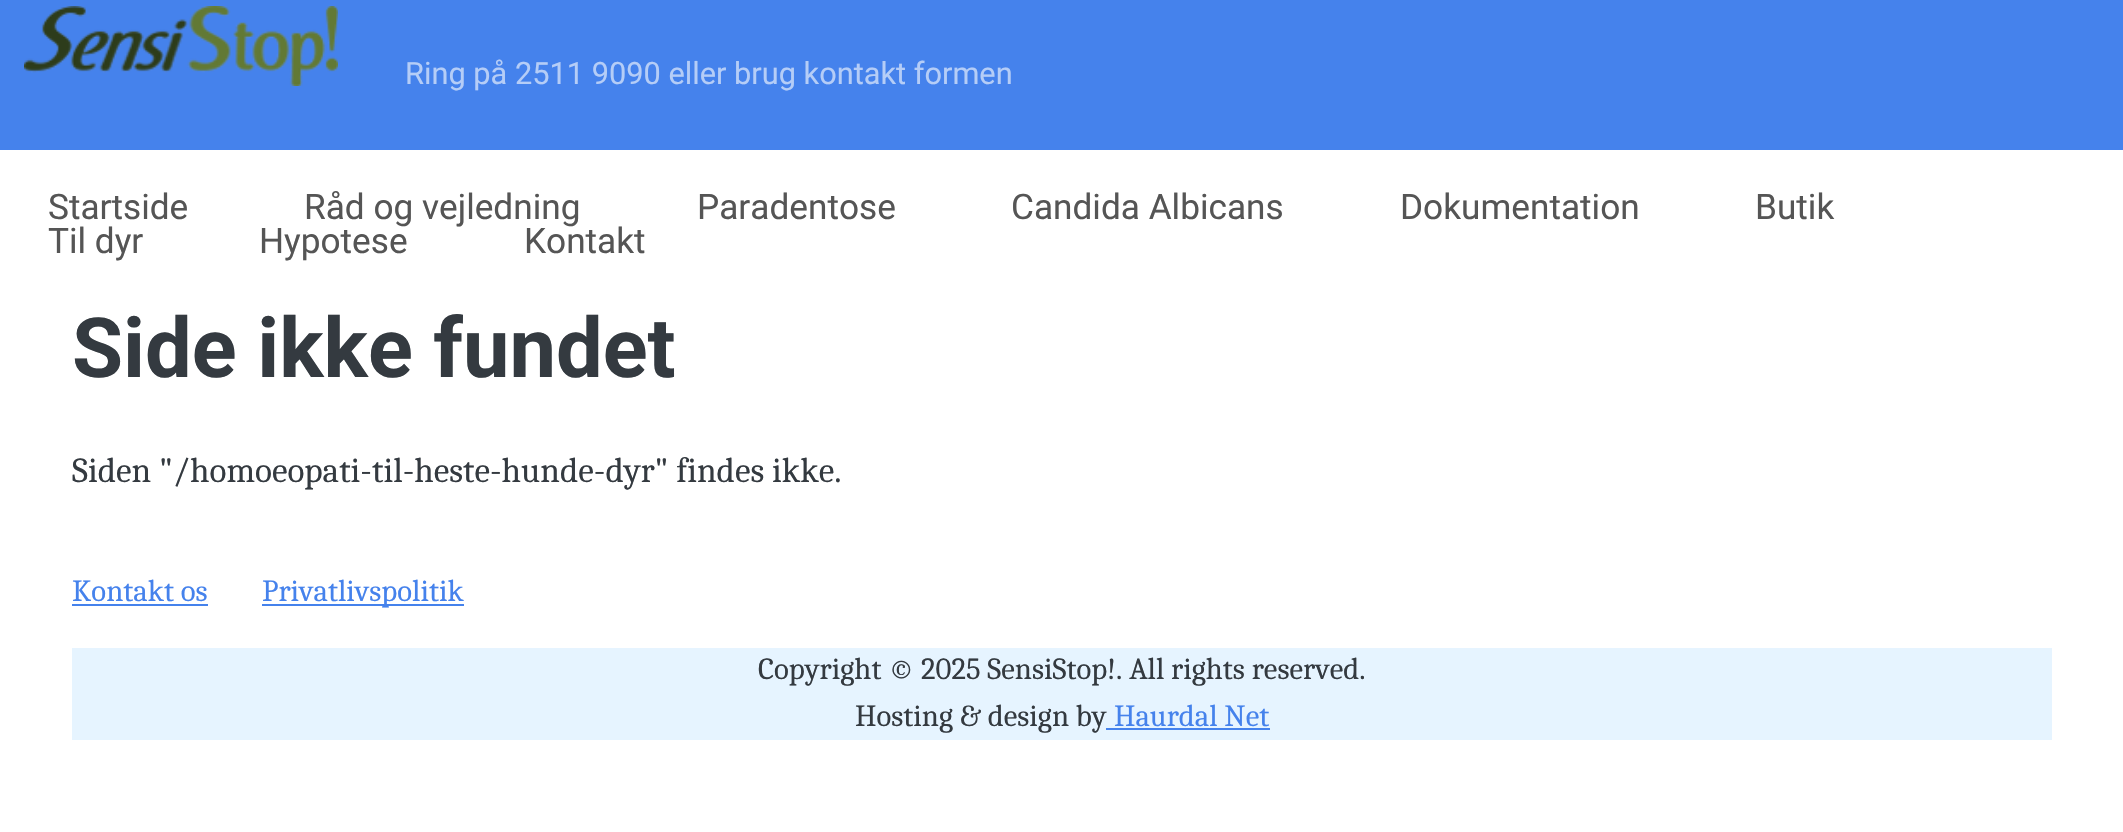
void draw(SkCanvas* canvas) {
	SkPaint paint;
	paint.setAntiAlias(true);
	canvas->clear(0xffffffff);
	paint.setColor(0xff4582ec);
	canvas->drawRect(SkRect::MakeXYWH(0, 0, 2123, 150), paint);
	canvas->drawImageRect(SkImages::DeferredFromEncodedData(SkData::MakeFromFileName("img1.png")), SkRect::MakeXYWH(24, 6, 314, 80), SkSamplingOptions());
	SkFont f1(fontMgr->matchFamilyStyle("Roboto", SkFontStyle::Normal()), 30.75);
	f1.setSubpixel(true);
	paint.setColor(0xffb5cdf7);
	canvas->drawString("Ring på 2511 9090 eller brug kontakt formen", 405, 84, f1, paint);
	SkFont f2(fontMgr->matchFamilyStyle("Roboto", SkFontStyle::Normal()), 35.2);
	f2.setSubpixel(true);
	paint.setColor(0xff555555);
	canvas->drawString("Startside", 48, 219, f2, paint);
	canvas->drawString("Råd og vejledning", 304, 219, f2, paint);
	canvas->drawString("Paradentose", 697, 219, f2, paint);
	canvas->drawString("Candida Albicans", 1011, 219, f2, paint);
	canvas->drawString("Dokumentation", 1400, 219, f2, paint);
	canvas->drawString("Butik", 1755, 219, f2, paint);
	canvas->drawString("Til dyr", 48, 253, f2, paint);
	canvas->drawString("Hypotese", 259, 253, f2, paint);
	canvas->drawString("Kontakt", 524, 253, f2, paint);
	SkFont f3(fontMgr->matchFamilyStyle("Roboto", SkFontStyle::Bold()), 83);
	f3.setSubpixel(true);
	paint.setColor(0xff343a40);
	canvas->drawString("Side ikke fundet", 72, 377, f3, paint);
	SkFont f4(fontMgr->matchFamilyStyle("Caladea", SkFontStyle::Normal()), 35.2);
	f4.setSubpixel(true);
	canvas->drawString("Siden \"/homoeopati-til-heste-hunde-dyr\" findes ikke.", 72, 482, f4, paint);
	SkFont f5(fontMgr->matchFamilyStyle("Caladea", SkFontStyle::Normal()), 30.75);
	f5.setSubpixel(true);
	paint.setColor(0xff4582ec);
	canvas->drawString("Kontakt os", 72, 601, f5, paint);
	canvas->drawRect(SkRect::MakeXYWH(72, 604, 136, 2), paint);
	canvas->drawRect(SkRect::MakeXYWH(262, 604, 202, 2), paint);
	canvas->drawString("Privatlivspolitik", 262, 601, f5, paint);
	paint.setColor(0xffe6f4ff);
	canvas->drawRect(SkRect::MakeXYWH(72, 648, 1980, 92), paint);
	paint.setColor(0xff343a40);
	canvas->drawString("Copyright © 2025 SensiStop!. All rights reserved.", 758, 679, f5, paint);
	canvas->drawString("Hosting & design by", 855, 726, f5, paint);
	paint.setColor(0xff4582ec);
	canvas->drawString("Haurdal Net", 1114, 726, f5, paint);
	canvas->drawRect(SkRect::MakeXYWH(1106, 728, 164, 2), paint);
}
